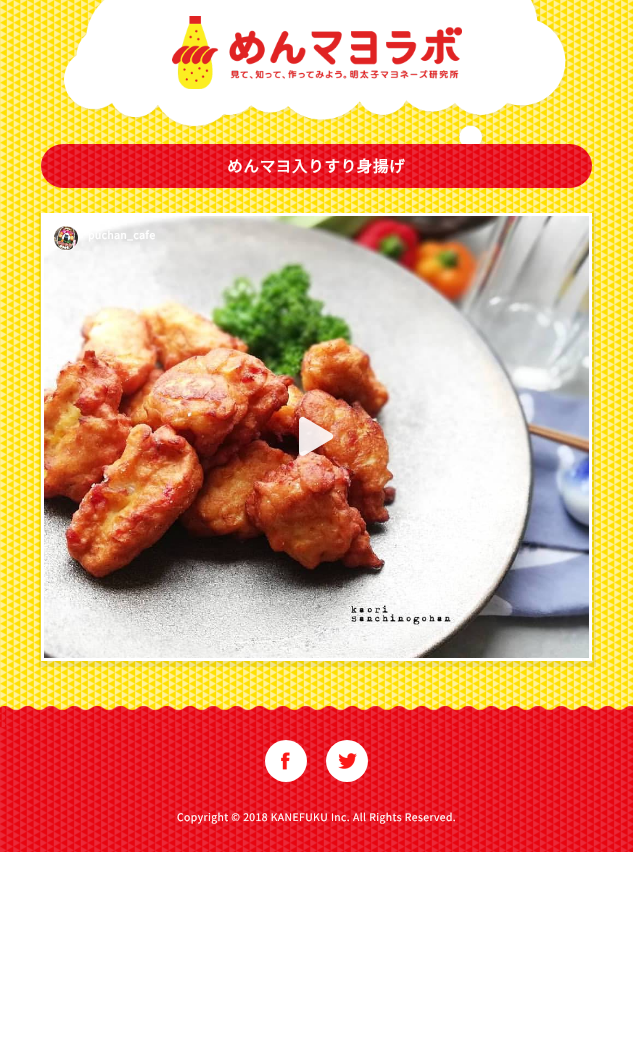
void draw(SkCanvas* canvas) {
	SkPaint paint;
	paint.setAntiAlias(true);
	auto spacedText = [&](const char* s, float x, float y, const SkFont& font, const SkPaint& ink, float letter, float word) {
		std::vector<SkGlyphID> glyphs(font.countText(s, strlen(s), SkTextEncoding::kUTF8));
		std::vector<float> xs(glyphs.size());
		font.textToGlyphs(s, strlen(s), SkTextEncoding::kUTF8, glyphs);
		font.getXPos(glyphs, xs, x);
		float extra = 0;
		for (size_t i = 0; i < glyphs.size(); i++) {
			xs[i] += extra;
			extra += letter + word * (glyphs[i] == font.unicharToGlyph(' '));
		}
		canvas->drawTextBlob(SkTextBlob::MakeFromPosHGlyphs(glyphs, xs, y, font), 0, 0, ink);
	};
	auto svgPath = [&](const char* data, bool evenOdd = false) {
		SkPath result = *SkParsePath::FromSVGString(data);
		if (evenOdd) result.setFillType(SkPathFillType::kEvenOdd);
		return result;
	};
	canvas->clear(0xffffffff);
	canvas->drawImageRect(SkImages::DeferredFromEncodedData(SkData::MakeFromFileName("img1.png")), SkRect::MakeXYWH(0, 0, 633, 711), SkSamplingOptions());
	canvas->drawImageRect(SkImages::DeferredFromEncodedData(SkData::MakeFromFileName("img2.png")), SkRect::MakeXYWH(64, 0, 504, 144), SkSamplingOptions());
	canvas->drawImageRect(SkImages::DeferredFromEncodedData(SkData::MakeFromFileName("img3.png")), SkRect::MakeXYWH(172, 16, 290, 73), SkSamplingOptions());
	canvas->drawImageRect(SkImages::DeferredFromEncodedData(SkData::MakeFromFileName("img4.png")), SkRect::MakeXYWH(41, 144, 551, 44), SkSamplingOptions());
	SkFont f1(fontMgr->matchFamilyStyle("Noto Sans JP", SkFontStyle::Bold()), 15.6);
	f1.setSubpixel(true);
	paint.setColor(0xffffffff);
	spacedText("めんマヨ入りすり身揚げ", 227, 172, f1, paint, 0.6, 0);
	paint.setColor(0x0f000000);
	canvas->drawPath(svgPath("M39 213V667H596V213H592V661H41V213Z"), paint);
	paint.setStroke(true);
	paint.setStrokeWidth(3);
	paint.setColor(0xffffffff);
	canvas->drawRect(SkRect::MakeXYWH(42.5, 214.5, 548, 445), paint);
	canvas->drawImageRect(SkImages::DeferredFromEncodedData(SkData::MakeFromFileName("img5.png")), SkRect::MakeXYWH(44, 216, 545, 442), SkSamplingOptions());
	paint.setStrokeWidth(1);
	canvas->drawCircle(66, 238, 12.5, paint);
	canvas->drawImageRect(SkImages::DeferredFromEncodedData(SkData::MakeFromFileName("img6.png")), SkRect::MakeXYWH(54, 226, 24, 24), SkSamplingOptions());
	SkFont f2(fontMgr->matchFamilyStyle("Noto Sans JP", SkFontStyle::Bold()), 10.4);
	f2.setSubpixel(true);
	paint.setStroke(false);
	spacedText("puchan_cafe", 88, 239, f2, paint, 0.42, 0);
	canvas->drawImageRect(SkImages::DeferredFromEncodedData(SkData::MakeFromFileName("img7.png")), SkRect::MakeXYWH(299, 416, 35, 40), SkSamplingOptions());
	canvas->drawImageRect(SkImages::DeferredFromEncodedData(SkData::MakeFromFileName("img8.png")), SkRect::MakeXYWH(0, 726, 633, 126), SkSamplingOptions());
	canvas->drawImageRect(SkImages::DeferredFromEncodedData(SkData::MakeFromFileName("img9.png")), SkRect::MakeXYWH(0, 706, 633, 21), SkSamplingOptions());
	canvas->drawCircle(286, 761, 21, paint);
	canvas->drawImageRect(SkImages::DeferredFromEncodedData(SkData::MakeFromFileName("img10.png")), SkRect::MakeXYWH(281, 752, 9, 18), SkSamplingOptions());
	canvas->drawCircle(347, 761, 21, paint);
	canvas->drawImageRect(SkImages::DeferredFromEncodedData(SkData::MakeFromFileName("img11.png")), SkRect::MakeXYWH(338, 753, 19, 16), SkSamplingOptions());
	SkFont f3(fontMgr->matchFamilyStyle("Noto Sans JP", SkFontStyle::Normal()), 10.4);
	f3.setSubpixel(true);
	spacedText("Copyright © 2018 KANEFUKU Inc. All Rights Reserved.", 177, 821, f3, paint, 0.42, 0);
}
